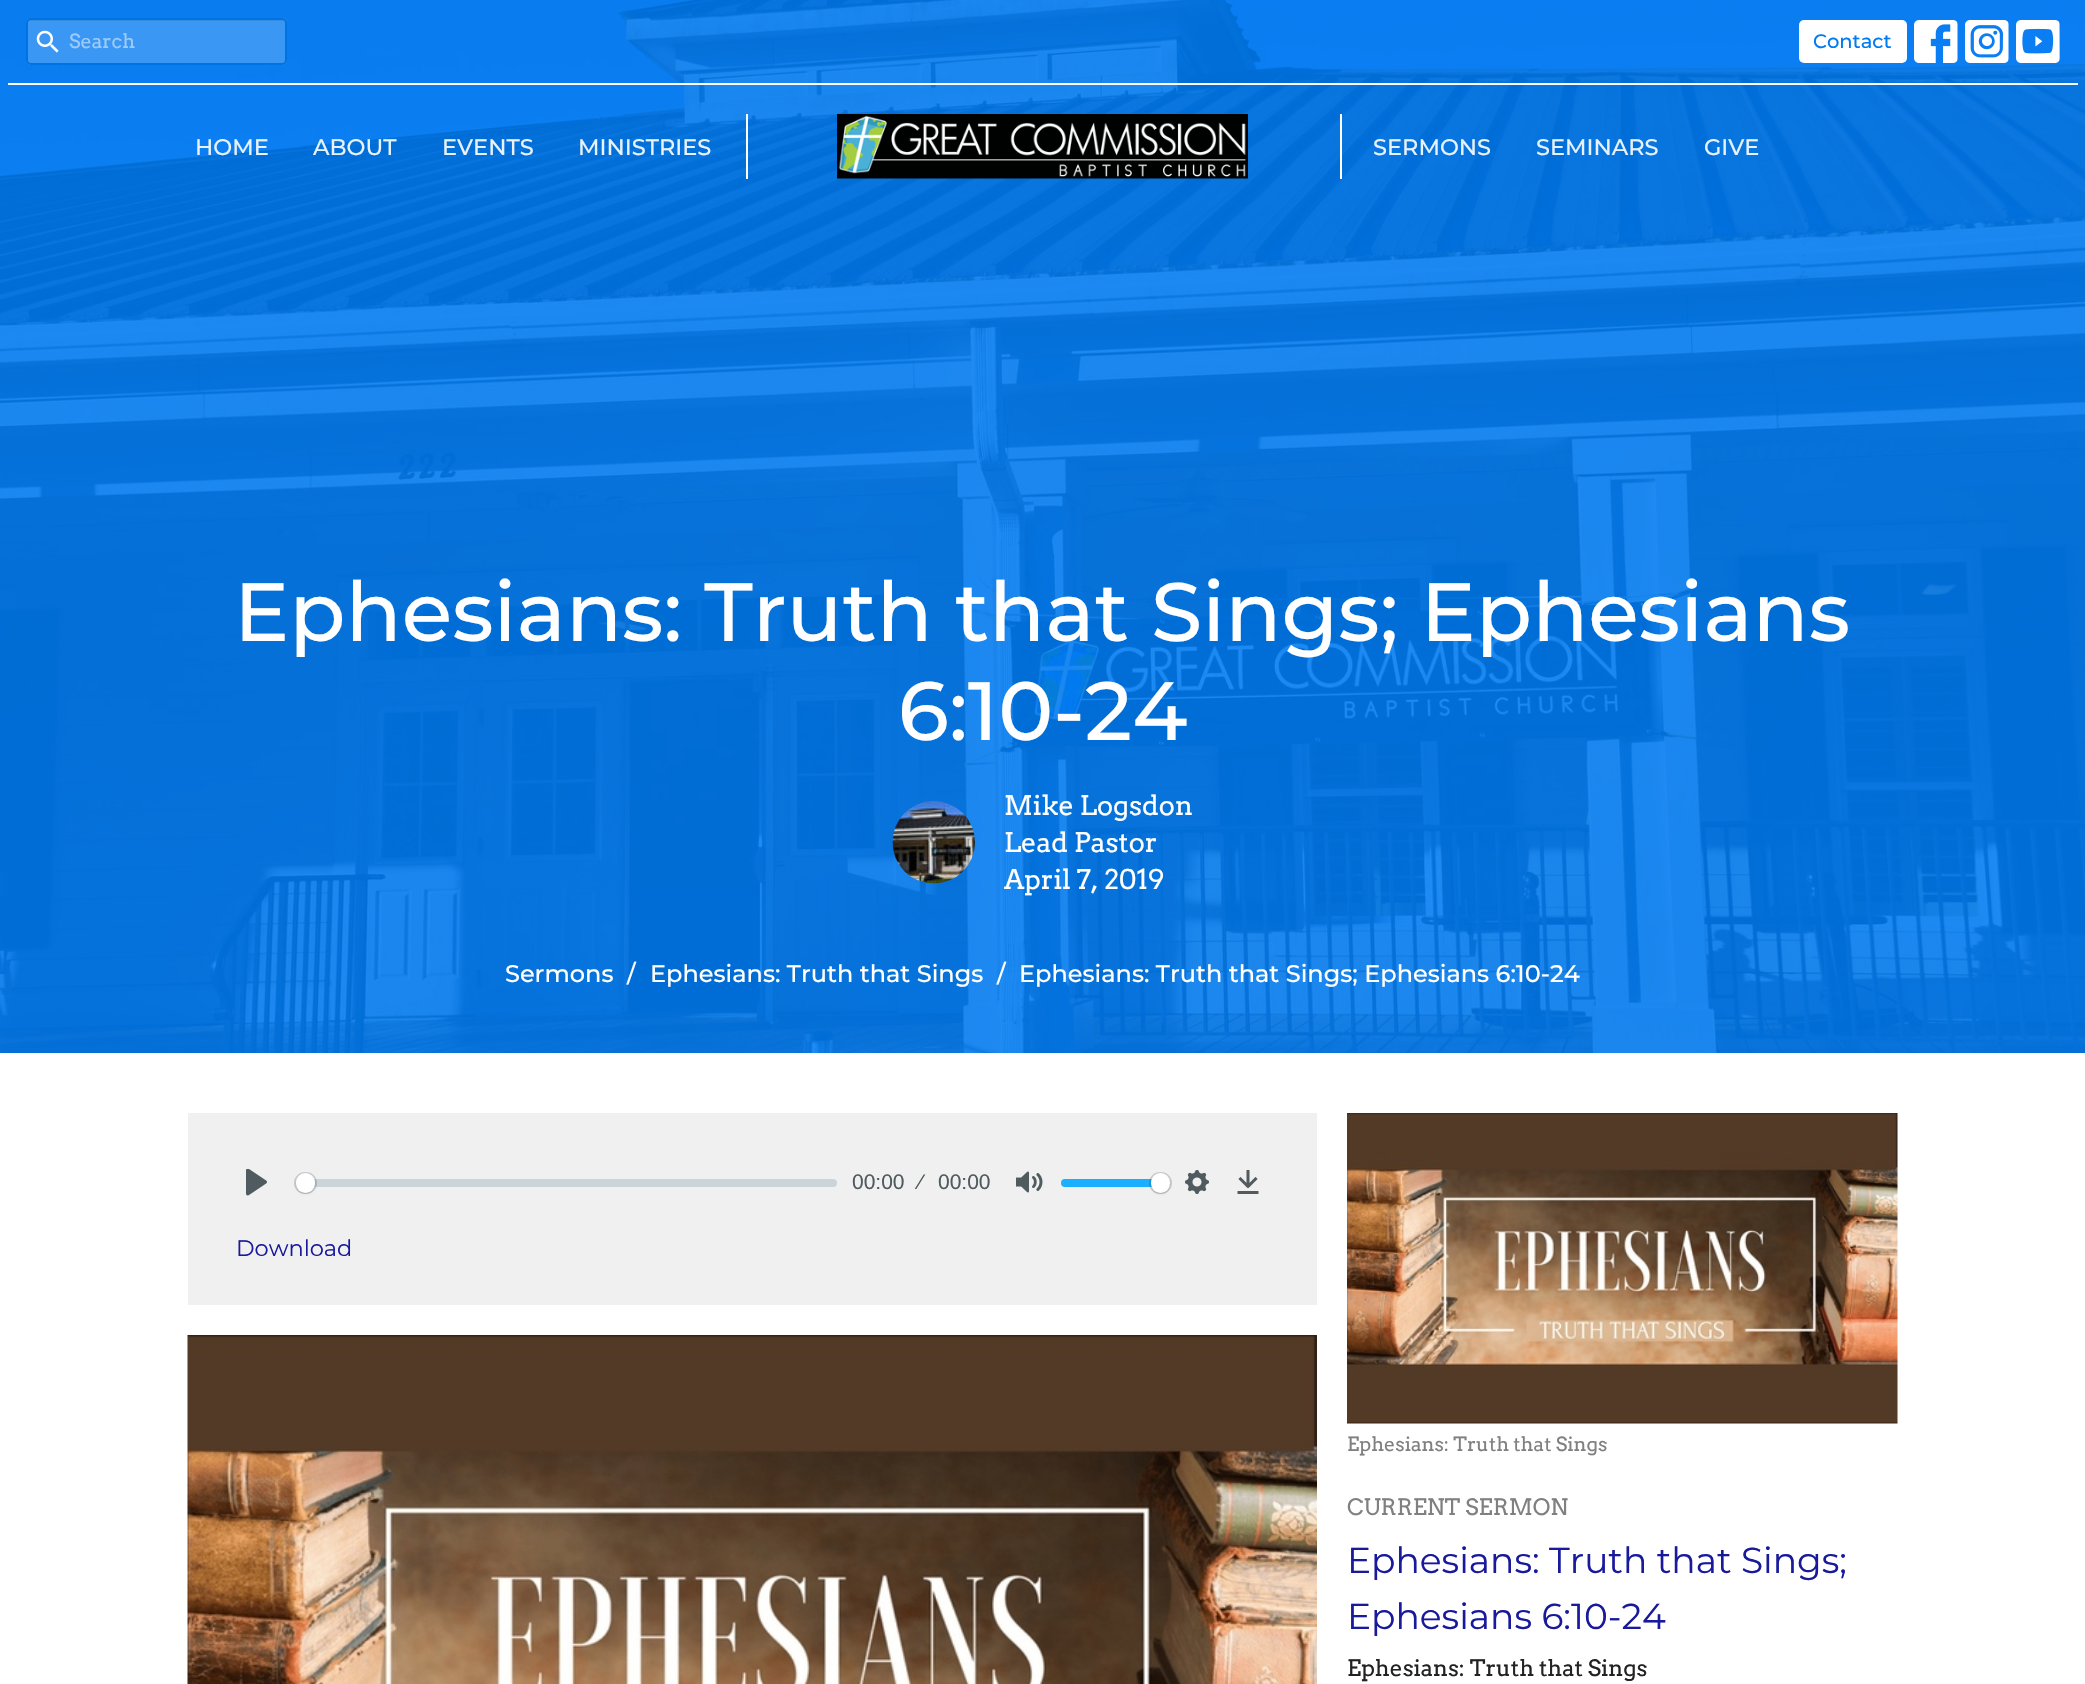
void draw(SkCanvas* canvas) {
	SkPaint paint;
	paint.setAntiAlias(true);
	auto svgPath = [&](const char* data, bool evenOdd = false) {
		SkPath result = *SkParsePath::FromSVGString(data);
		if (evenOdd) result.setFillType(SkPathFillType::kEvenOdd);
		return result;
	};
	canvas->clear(0xffffffff);
	canvas->drawImageRect(SkImages::DeferredFromEncodedData(SkData::MakeFromFileName("img6.png")), SkRect::MakeXYWH(0, 0, 2085, 1053), SkSamplingOptions());
	paint.setColor(0xffffffff);
	canvas->drawRect(SkRect::MakeXYWH(8, 83, 2070, 2), paint);
	paint.setColor(0xff3a97f3);
	canvas->drawRoundRect(SkRect::MakeXYWH(26, 18, 261, 47), 5, 5, paint);
	paint.setColor(0xff368ce1);
	canvas->drawPath(svgPath("M30 21H283L285 22V24V23C285 21 284 20 282 20H30C28 20 27 21 27 23V24C27 22 28 21 30 21Z"), paint);
	paint.setStroke(true);
	paint.setStrokeWidth(2);
	paint.setColor(0xff0073e3);
	canvas->drawRoundRect(SkRect::MakeXYWH(27, 19, 259, 45), 4, 4, paint);
	canvas->drawImageRect(SkImages::DeferredFromEncodedData(SkData::MakeFromFileName("img1.png")), SkRect::MakeXYWH(36, 30, 23, 23), SkSamplingOptions());
	SkFont f1(fontMgr->matchFamilyStyle("Arvo", SkFontStyle::Normal()), 19.5);
	f1.setSubpixel(true);
	paint.setStroke(false);
	paint.setColor(0xff9dcbf9);
	canvas->drawString("Search", 69, 48, f1, paint);
	paint.setColor(0xffffffff);
	canvas->drawRoundRect(SkRect::MakeXYWH(1799, 20, 108, 43), 5, 5, paint);
	SkFont f2(fontMgr->matchFamilyStyle("Montserrat", SkFontStyle(500, SkFontStyle::kNormal_Width, SkFontStyle::kUpright_Slant)), 19.5);
	f2.setSubpixel(true);
	paint.setColor(0xff007bf2);
	canvas->drawString("Contact", 1813, 48, f2, paint);
	canvas->drawImageRect(SkImages::DeferredFromEncodedData(SkData::MakeFromFileName("img2.png")), SkRect::MakeXYWH(1914, 20, 44, 43), SkSamplingOptions());
	canvas->drawImageRect(SkImages::DeferredFromEncodedData(SkData::MakeFromFileName("img3.png")), SkRect::MakeXYWH(1965, 20, 44, 43), SkSamplingOptions());
	canvas->drawImageRect(SkImages::DeferredFromEncodedData(SkData::MakeFromFileName("img4.png")), SkRect::MakeXYWH(2016, 20, 44, 43), SkSamplingOptions());
	SkFont f3(fontMgr->matchFamilyStyle("Montserrat", SkFontStyle(500, SkFontStyle::kNormal_Width, SkFontStyle::kUpright_Slant)), 22.5);
	f3.setSubpixel(true);
	paint.setColor(0xffe7f2fd);
	canvas->drawString("HOME", 195, 155, f3, paint);
	canvas->drawString("ABOUT", 313, 155, f3, paint);
	canvas->drawString("EVENTS", 442, 155, f3, paint);
	canvas->drawString("MINISTRIES", 578, 155, f3, paint);
	paint.setColor(0xffffffff);
	canvas->drawRect(SkRect::MakeXYWH(1340, 114, 2, 65), paint);
	canvas->drawRect(SkRect::MakeXYWH(746, 114, 2, 65), paint);
	canvas->drawImageRect(SkImages::DeferredFromEncodedData(SkData::MakeFromFileName("img5.png")), SkRect::MakeXYWH(837, 114, 411, 65), SkSamplingOptions());
	paint.setColor(0xffe7f2fd);
	canvas->drawString("SERMONS", 1373, 155, f3, paint);
	canvas->drawString("SEMINARS", 1536, 155, f3, paint);
	canvas->drawString("GIVE", 1704, 155, f3, paint);
	SkFont f4(fontMgr->matchFamilyStyle("Montserrat", SkFontStyle(500, SkFontStyle::kNormal_Width, SkFontStyle::kUpright_Slant)), 82.5);
	f4.setSubpixel(true);
	paint.setColor(0xffffffff);
	canvas->drawString("Ephesians: Truth that Sings; Ephesians", 234, 641, f4, paint);
	canvas->drawString("6:10-24", 898, 740, f4, paint);
	canvas->drawImageRect(SkImages::DeferredFromEncodedData(SkData::MakeFromFileName("img7.png")), SkRect::MakeXYWH(892, 801, 83, 83), SkSamplingOptions());
	SkFont f5(fontMgr->matchFamilyStyle("Arvo", SkFontStyle::Normal()), 27);
	f5.setSubpixel(true);
	canvas->drawString("Mike Logsdon", 1004, 815, f5, paint);
	canvas->drawString("Lead Pastor", 1004, 852, f5, paint);
	canvas->drawString("April 7, 2019", 1004, 889, f5, paint);
	SkFont f6(fontMgr->matchFamilyStyle("Montserrat", SkFontStyle(500, SkFontStyle::kNormal_Width, SkFontStyle::kUpright_Slant)), 24);
	f6.setSubpixel(true);
	canvas->drawString("Sermons", 505, 982, f6, paint);
	canvas->drawString("/", 627, 982, f6, paint);
	canvas->drawString("Ephesians: Truth that Sings", 650, 982, f6, paint);
	canvas->drawString("/", 997, 982, f6, paint);
	canvas->drawString("Ephesians: Truth that Sings; Ephesians 6:10-24", 1019, 982, f6, paint);
	paint.setColor(0xfff0f0f0);
	canvas->drawRect(SkRect::MakeXYWH(188, 1113, 1129, 192), paint);
	canvas->drawImageRect(SkImages::DeferredFromEncodedData(SkData::MakeFromFileName("img8.png")), SkRect::MakeXYWH(246, 1169, 21, 27), SkSamplingOptions());
	paint.setColor(0xa8b7c5cd);
	canvas->drawRoundRect(SkRect::MakeXYWH(296, 1179, 541, 8), 4, 4, paint);
	paint.setStroke(true);
	paint.setColor(0x332f343d);
	canvas->drawRoundRect(SkRect::MakeXYWH(295, 1173, 21, 20), 10, 10, paint);
	paint.setStroke(false);
	paint.setColor(0x26000000);
	paint.setMaskFilter(SkMaskFilter::MakeBlur(kNormal_SkBlurStyle, 1));
	canvas->drawRoundRect(SkRect::MakeXYWH(296, 1175, 19, 19), 9.5, 9.5, paint);
	paint.setMaskFilter(nullptr);
	paint.setColor(0xffffffff);
	canvas->drawRoundRect(SkRect::MakeXYWH(296, 1173, 19, 20), 9.5, 9.5, paint);
	SkFont f7(fontMgr->matchFamilyStyle("Liberation Sans", SkFontStyle::Normal()), 21);
	f7.setSubpixel(true);
	paint.setColor(0xff4f5b5f);
	canvas->drawString("00:00", 852, 1189, f7, paint);
	canvas->drawString("⁄", 919, 1189, f7, paint);
	canvas->drawString("00:00", 938, 1189, f7, paint);
	canvas->drawImageRect(SkImages::DeferredFromEncodedData(SkData::MakeFromFileName("img9.png")), SkRect::MakeXYWH(1016, 1171, 27, 22), SkSamplingOptions());
	paint.setColor(0xff1aafff);
	canvas->drawRoundRect(SkRect::MakeXYWH(1061, 1179, 109, 8), 4, 4, paint);
	paint.setStroke(true);
	paint.setColor(0x332f343d);
	canvas->drawRoundRect(SkRect::MakeXYWH(1150, 1173, 21, 20), 10, 10, paint);
	paint.setStroke(false);
	paint.setColor(0x26000000);
	paint.setMaskFilter(SkMaskFilter::MakeBlur(kNormal_SkBlurStyle, 1));
	canvas->drawRoundRect(SkRect::MakeXYWH(1151, 1175, 19, 19), 9.5, 9.5, paint);
	paint.setMaskFilter(nullptr);
	paint.setColor(0xffffffff);
	canvas->drawRoundRect(SkRect::MakeXYWH(1151, 1173, 19, 20), 9.5, 9.5, paint);
	canvas->drawImageRect(SkImages::DeferredFromEncodedData(SkData::MakeFromFileName("img10.png")), SkRect::MakeXYWH(1185, 1170, 24, 24), SkSamplingOptions());
	canvas->drawImageRect(SkImages::DeferredFromEncodedData(SkData::MakeFromFileName("img11.png")), SkRect::MakeXYWH(1237, 1170, 22, 24), SkSamplingOptions());
	SkFont f8(fontMgr->matchFamilyStyle("Montserrat", SkFontStyle::Normal()), 22.5);
	f8.setSubpixel(true);
	paint.setColor(0xff19199c);
	canvas->drawString("Download", 236, 1256, f8, paint);
	canvas->drawImageRect(SkImages::DeferredFromEncodedData(SkData::MakeFromFileName("img12.png")), SkRect::MakeXYWH(187, 1335, 1130, 349), SkSamplingOptions());
	canvas->drawImageRect(SkImages::DeferredFromEncodedData(SkData::MakeFromFileName("img13.png")), SkRect::MakeXYWH(1347, 1113, 551, 311), SkSamplingOptions());
	paint.setColor(0xff808080);
	canvas->drawString("Ephesians: Truth that Sings", 1347, 1451, f1, paint);
	SkFont f9(fontMgr->matchFamilyStyle("Arvo", SkFontStyle::Normal()), 22.5);
	f9.setSubpixel(true);
	canvas->drawString("CURRENT SERMON", 1347, 1515, f9, paint);
	SkFont f10(fontMgr->matchFamilyStyle("Montserrat", SkFontStyle::Normal()), 36);
	f10.setSubpixel(true);
	paint.setColor(0xff19199c);
	canvas->drawString("Ephesians: Truth that Sings;", 1347, 1573, f10, paint);
	canvas->drawString("Ephesians 6:10-24", 1347, 1629, f10, paint);
	paint.setColor(0xff222222);
	canvas->drawString("Ephesians: Truth that Sings", 1347, 1676, f9, paint);
}
